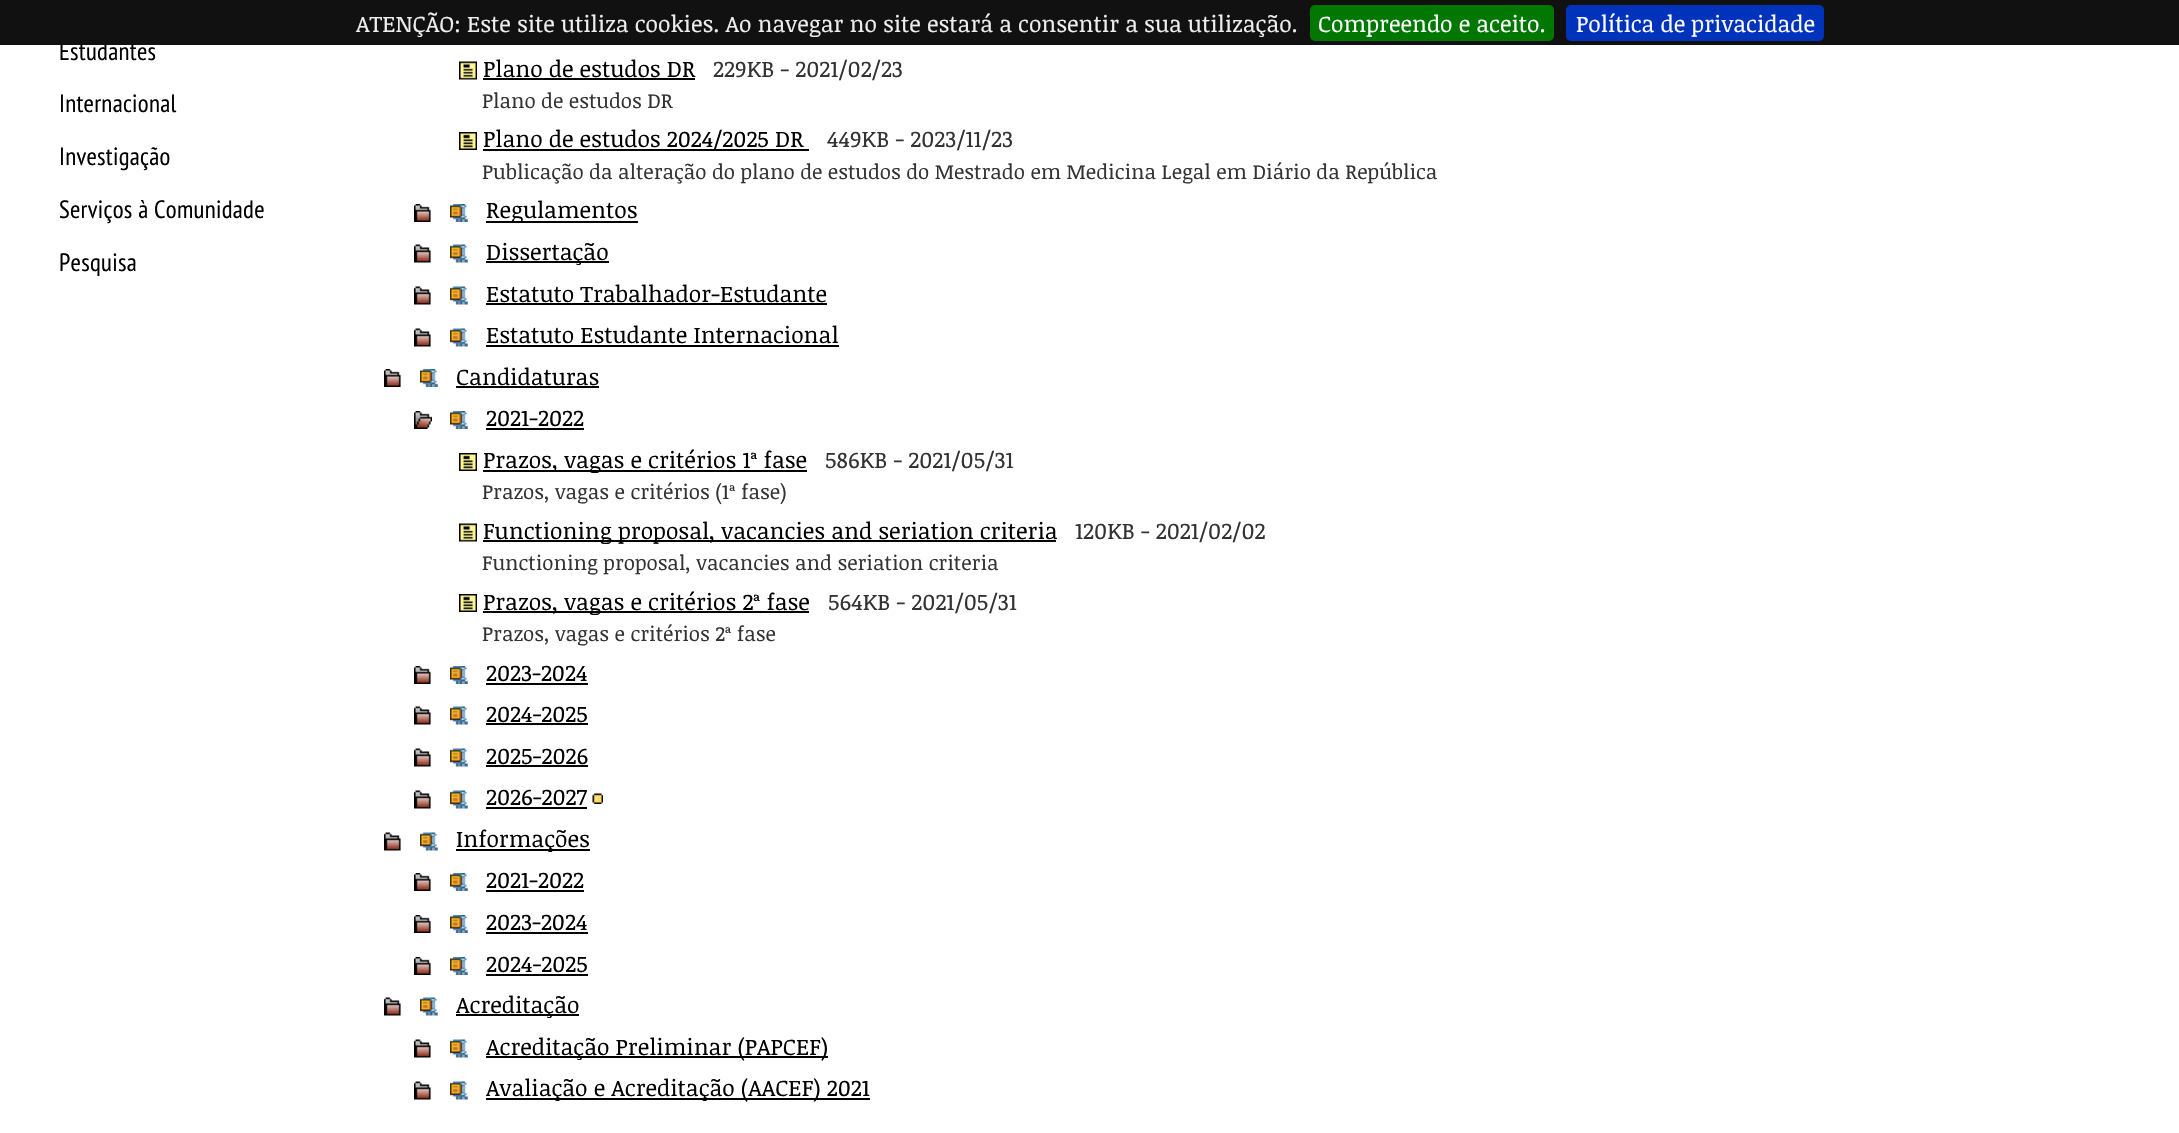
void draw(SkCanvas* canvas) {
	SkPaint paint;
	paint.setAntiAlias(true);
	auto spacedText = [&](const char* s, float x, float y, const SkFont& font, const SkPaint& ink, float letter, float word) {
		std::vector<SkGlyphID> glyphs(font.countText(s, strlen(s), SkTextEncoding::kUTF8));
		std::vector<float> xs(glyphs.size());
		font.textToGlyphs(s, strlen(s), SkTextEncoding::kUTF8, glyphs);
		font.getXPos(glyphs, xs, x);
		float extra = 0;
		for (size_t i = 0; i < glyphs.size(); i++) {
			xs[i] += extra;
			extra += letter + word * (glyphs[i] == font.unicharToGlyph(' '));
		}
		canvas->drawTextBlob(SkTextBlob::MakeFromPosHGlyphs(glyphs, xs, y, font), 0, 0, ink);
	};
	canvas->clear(0xffffffff);
	SkFont f1(fontMgr->matchFamilyStyle("PT Sans Narrow", SkFontStyle::Normal()), 25);
	f1.setSubpixel(true);
	paint.setColor(0xff000000);
	spacedText("Estudantes", 59, 60, f1, paint, 0.3, 0);
	paint.setColor(0xff111111);
	canvas->drawRect(SkRect::MakeXYWH(0, 0, 2179, 45), paint);
	SkFont f2(fontMgr->matchFamilyStyle("Noticia Text", SkFontStyle::Normal()), 22.8);
	f2.setSubpixel(true);
	paint.setColor(0xffeeeeee);
	canvas->drawString("ATENÇÃO: Este site utiliza cookies. Ao navegar no site estará a consentir a sua utilização.", 356, 32, f2, paint);
	paint.setColor(0xff007700);
	canvas->drawRoundRect(SkRect::MakeXYWH(1310, 5, 244, 36), 5, 5, paint);
	paint.setColor(0xffffffff);
	canvas->drawString("Compreendo e aceito.", 1318, 32, f2, paint);
	paint.setColor(0xff0033bb);
	canvas->drawRoundRect(SkRect::MakeXYWH(1566, 5, 258, 36), 5, 5, paint);
	paint.setColor(0xffffffff);
	canvas->drawString("Política de privacidade", 1576, 32, f2, paint);
	paint.setColor(0xff000000);
	spacedText("Internacional", 59, 112, f1, paint, 0.3, 0);
	spacedText("Investigação", 59, 165, f1, paint, 0.3, 0);
	spacedText("Serviços à Comunidade", 59, 218, f1, paint, 0.3, 0);
	spacedText("Pesquisa", 59, 271, f1, paint, 0.3, 0);
	canvas->drawImageRect(SkImages::DeferredFromEncodedData(SkData::MakeFromFileName("img1.png")), SkRect::MakeXYWH(459, 61, 18, 19), SkSamplingOptions());
	canvas->drawString("Plano de estudos DR", 483, 77, f2, paint);
	canvas->drawRect(SkRect::MakeXYWH(483, 78, 212, 2), paint);
	paint.setColor(0xff333333);
	canvas->drawString("229KB - 2021/02/23", 713, 77, f2, paint);
	SkFont f3(fontMgr->matchFamilyStyle("Noticia Text", SkFontStyle::Normal()), 20.5);
	f3.setSubpixel(true);
	canvas->drawString("Plano de estudos DR", 482, 108, f3, paint);
	canvas->drawImageRect(SkImages::DeferredFromEncodedData(SkData::MakeFromFileName("img2.png")), SkRect::MakeXYWH(459, 132, 18, 18), SkSamplingOptions());
	paint.setColor(0xff000000);
	canvas->drawRect(SkRect::MakeXYWH(483, 149, 326, 2), paint);
	canvas->drawString("Plano de estudos 2024/2025 DR", 483, 147, f2, paint);
	paint.setColor(0xff333333);
	canvas->drawString("449KB - 2023/11/23", 827, 147, f2, paint);
	canvas->drawString("Publicação da alteração do plano de estudos do Mestrado em Medicina Legal em Diário da República", 482, 179, f3, paint);
	canvas->drawImageRect(SkImages::DeferredFromEncodedData(SkData::MakeFromFileName("img3.png")), SkRect::MakeXYWH(414, 204, 17, 18), SkSamplingOptions());
	canvas->drawImageRect(SkImages::DeferredFromEncodedData(SkData::MakeFromFileName("img4.png")), SkRect::MakeXYWH(450, 204, 18, 18), SkSamplingOptions());
	paint.setColor(0xff000000);
	canvas->drawRect(SkRect::MakeXYWH(486, 221, 152, 2), paint);
	canvas->drawString("Regulamentos", 486, 218, f2, paint);
	canvas->drawImageRect(SkImages::DeferredFromEncodedData(SkData::MakeFromFileName("img5.png")), SkRect::MakeXYWH(414, 244, 17, 19), SkSamplingOptions());
	canvas->drawImageRect(SkImages::DeferredFromEncodedData(SkData::MakeFromFileName("img6.png")), SkRect::MakeXYWH(450, 244, 18, 19), SkSamplingOptions());
	canvas->drawRect(SkRect::MakeXYWH(486, 261, 123, 2), paint);
	canvas->drawString("Dissertação", 486, 260, f2, paint);
	canvas->drawImageRect(SkImages::DeferredFromEncodedData(SkData::MakeFromFileName("img5.png")), SkRect::MakeXYWH(414, 286, 17, 19), SkSamplingOptions());
	canvas->drawImageRect(SkImages::DeferredFromEncodedData(SkData::MakeFromFileName("img6.png")), SkRect::MakeXYWH(450, 286, 18, 19), SkSamplingOptions());
	canvas->drawString("Estatuto Trabalhador-Estudante", 486, 302, f2, paint);
	canvas->drawRect(SkRect::MakeXYWH(486, 303, 341, 2), paint);
	canvas->drawImageRect(SkImages::DeferredFromEncodedData(SkData::MakeFromFileName("img5.png")), SkRect::MakeXYWH(414, 328, 17, 19), SkSamplingOptions());
	canvas->drawImageRect(SkImages::DeferredFromEncodedData(SkData::MakeFromFileName("img6.png")), SkRect::MakeXYWH(450, 328, 18, 19), SkSamplingOptions());
	canvas->drawString("Estatuto Estudante Internacional", 486, 343, f2, paint);
	canvas->drawRect(SkRect::MakeXYWH(486, 345, 353, 2), paint);
	canvas->drawImageRect(SkImages::DeferredFromEncodedData(SkData::MakeFromFileName("img3.png")), SkRect::MakeXYWH(384, 369, 17, 18), SkSamplingOptions());
	canvas->drawImageRect(SkImages::DeferredFromEncodedData(SkData::MakeFromFileName("img4.png")), SkRect::MakeXYWH(420, 369, 18, 18), SkSamplingOptions());
	canvas->drawString("Candidaturas", 456, 385, f2, paint);
	canvas->drawRect(SkRect::MakeXYWH(456, 386, 143, 2), paint);
	canvas->drawImageRect(SkImages::DeferredFromEncodedData(SkData::MakeFromFileName("img7.png")), SkRect::MakeXYWH(414, 411, 18, 18), SkSamplingOptions());
	canvas->drawImageRect(SkImages::DeferredFromEncodedData(SkData::MakeFromFileName("img4.png")), SkRect::MakeXYWH(450, 411, 18, 18), SkSamplingOptions());
	canvas->drawString("2021-2022", 486, 426, f2, paint);
	canvas->drawRect(SkRect::MakeXYWH(486, 428, 98, 2), paint);
	canvas->drawImageRect(SkImages::DeferredFromEncodedData(SkData::MakeFromFileName("img2.png")), SkRect::MakeXYWH(459, 453, 18, 18), SkSamplingOptions());
	canvas->drawRect(SkRect::MakeXYWH(483, 470, 324, 2), paint);
	canvas->drawString("Prazos, vagas e critérios 1ª fase", 483, 468, f2, paint);
	paint.setColor(0xff333333);
	canvas->drawString("586KB - 2021/05/31", 825, 468, f2, paint);
	canvas->drawString("Prazos, vagas e critérios (1ª fase)", 482, 499, f3, paint);
	canvas->drawImageRect(SkImages::DeferredFromEncodedData(SkData::MakeFromFileName("img1.png")), SkRect::MakeXYWH(459, 523, 18, 19), SkSamplingOptions());
	paint.setColor(0xff000000);
	canvas->drawRect(SkRect::MakeXYWH(483, 540, 573, 2), paint);
	canvas->drawString("Functioning proposal, vacancies and seriation criteria", 483, 539, f2, paint);
	paint.setColor(0xff333333);
	canvas->drawString("120KB - 2021/02/02", 1075, 539, f2, paint);
	canvas->drawString("Functioning proposal, vacancies and seriation criteria", 482, 570, f3, paint);
	canvas->drawImageRect(SkImages::DeferredFromEncodedData(SkData::MakeFromFileName("img2.png")), SkRect::MakeXYWH(459, 594, 18, 18), SkSamplingOptions());
	paint.setColor(0xff000000);
	canvas->drawRect(SkRect::MakeXYWH(483, 611, 326, 2), paint);
	canvas->drawString("Prazos, vagas e critérios 2ª fase", 483, 610, f2, paint);
	paint.setColor(0xff333333);
	canvas->drawString("564KB - 2021/05/31", 828, 610, f2, paint);
	canvas->drawString("Prazos, vagas e critérios 2ª fase", 482, 641, f3, paint);
	canvas->drawImageRect(SkImages::DeferredFromEncodedData(SkData::MakeFromFileName("img3.png")), SkRect::MakeXYWH(414, 666, 17, 18), SkSamplingOptions());
	canvas->drawImageRect(SkImages::DeferredFromEncodedData(SkData::MakeFromFileName("img4.png")), SkRect::MakeXYWH(450, 666, 18, 18), SkSamplingOptions());
	paint.setColor(0xff000000);
	canvas->drawString("2023-2024", 486, 681, f2, paint);
	canvas->drawRect(SkRect::MakeXYWH(486, 683, 102, 2), paint);
	canvas->drawImageRect(SkImages::DeferredFromEncodedData(SkData::MakeFromFileName("img5.png")), SkRect::MakeXYWH(414, 706, 17, 19), SkSamplingOptions());
	canvas->drawImageRect(SkImages::DeferredFromEncodedData(SkData::MakeFromFileName("img6.png")), SkRect::MakeXYWH(450, 706, 18, 19), SkSamplingOptions());
	canvas->drawString("2024-2025", 486, 722, f2, paint);
	canvas->drawRect(SkRect::MakeXYWH(486, 723, 102, 2), paint);
	canvas->drawImageRect(SkImages::DeferredFromEncodedData(SkData::MakeFromFileName("img5.png")), SkRect::MakeXYWH(414, 748, 17, 19), SkSamplingOptions());
	canvas->drawImageRect(SkImages::DeferredFromEncodedData(SkData::MakeFromFileName("img6.png")), SkRect::MakeXYWH(450, 748, 18, 19), SkSamplingOptions());
	canvas->drawString("2025-2026", 486, 764, f2, paint);
	canvas->drawRect(SkRect::MakeXYWH(486, 765, 102, 2), paint);
	canvas->drawImageRect(SkImages::DeferredFromEncodedData(SkData::MakeFromFileName("img5.png")), SkRect::MakeXYWH(414, 790, 17, 19), SkSamplingOptions());
	canvas->drawImageRect(SkImages::DeferredFromEncodedData(SkData::MakeFromFileName("img6.png")), SkRect::MakeXYWH(450, 790, 18, 19), SkSamplingOptions());
	canvas->drawString("2026-2027", 486, 805, f2, paint);
	canvas->drawRect(SkRect::MakeXYWH(486, 807, 101, 2), paint);
	canvas->drawImageRect(SkImages::DeferredFromEncodedData(SkData::MakeFromFileName("img8.png")), SkRect::MakeXYWH(592, 793, 11, 11), SkSamplingOptions());
	canvas->drawImageRect(SkImages::DeferredFromEncodedData(SkData::MakeFromFileName("img5.png")), SkRect::MakeXYWH(384, 832, 17, 19), SkSamplingOptions());
	canvas->drawImageRect(SkImages::DeferredFromEncodedData(SkData::MakeFromFileName("img6.png")), SkRect::MakeXYWH(420, 832, 18, 19), SkSamplingOptions());
	canvas->drawRect(SkRect::MakeXYWH(456, 849, 134, 2), paint);
	canvas->drawString("Informações", 456, 847, f2, paint);
	canvas->drawImageRect(SkImages::DeferredFromEncodedData(SkData::MakeFromFileName("img3.png")), SkRect::MakeXYWH(414, 873, 17, 18), SkSamplingOptions());
	canvas->drawImageRect(SkImages::DeferredFromEncodedData(SkData::MakeFromFileName("img4.png")), SkRect::MakeXYWH(450, 873, 18, 18), SkSamplingOptions());
	canvas->drawString("2021-2022", 486, 888, f2, paint);
	canvas->drawRect(SkRect::MakeXYWH(486, 890, 98, 2), paint);
	canvas->drawImageRect(SkImages::DeferredFromEncodedData(SkData::MakeFromFileName("img3.png")), SkRect::MakeXYWH(414, 915, 17, 18), SkSamplingOptions());
	canvas->drawImageRect(SkImages::DeferredFromEncodedData(SkData::MakeFromFileName("img4.png")), SkRect::MakeXYWH(450, 915, 18, 18), SkSamplingOptions());
	canvas->drawString("2023-2024", 486, 930, f2, paint);
	canvas->drawRect(SkRect::MakeXYWH(486, 932, 102, 2), paint);
	canvas->drawImageRect(SkImages::DeferredFromEncodedData(SkData::MakeFromFileName("img3.png")), SkRect::MakeXYWH(414, 957, 17, 18), SkSamplingOptions());
	canvas->drawImageRect(SkImages::DeferredFromEncodedData(SkData::MakeFromFileName("img4.png")), SkRect::MakeXYWH(450, 957, 18, 18), SkSamplingOptions());
	canvas->drawString("2024-2025", 486, 972, f2, paint);
	canvas->drawRect(SkRect::MakeXYWH(486, 974, 102, 2), paint);
	canvas->drawImageRect(SkImages::DeferredFromEncodedData(SkData::MakeFromFileName("img5.png")), SkRect::MakeXYWH(384, 997, 17, 19), SkSamplingOptions());
	canvas->drawImageRect(SkImages::DeferredFromEncodedData(SkData::MakeFromFileName("img6.png")), SkRect::MakeXYWH(420, 997, 18, 19), SkSamplingOptions());
	canvas->drawRect(SkRect::MakeXYWH(456, 1014, 123, 2), paint);
	canvas->drawString("Acreditação", 456, 1013, f2, paint);
	canvas->drawImageRect(SkImages::DeferredFromEncodedData(SkData::MakeFromFileName("img5.png")), SkRect::MakeXYWH(414, 1039, 17, 19), SkSamplingOptions());
	canvas->drawImageRect(SkImages::DeferredFromEncodedData(SkData::MakeFromFileName("img6.png")), SkRect::MakeXYWH(450, 1039, 18, 19), SkSamplingOptions());
	canvas->drawRect(SkRect::MakeXYWH(486, 1056, 342, 2), paint);
	canvas->drawString("Acreditação Preliminar (PAPCEF)", 486, 1055, f2, paint);
	canvas->drawImageRect(SkImages::DeferredFromEncodedData(SkData::MakeFromFileName("img5.png")), SkRect::MakeXYWH(414, 1081, 17, 19), SkSamplingOptions());
	canvas->drawImageRect(SkImages::DeferredFromEncodedData(SkData::MakeFromFileName("img6.png")), SkRect::MakeXYWH(450, 1081, 18, 19), SkSamplingOptions());
	canvas->drawRect(SkRect::MakeXYWH(486, 1098, 384, 2), paint);
	canvas->drawString("Avaliação e Acreditação (AACEF) 2021", 486, 1096, f2, paint);
}
